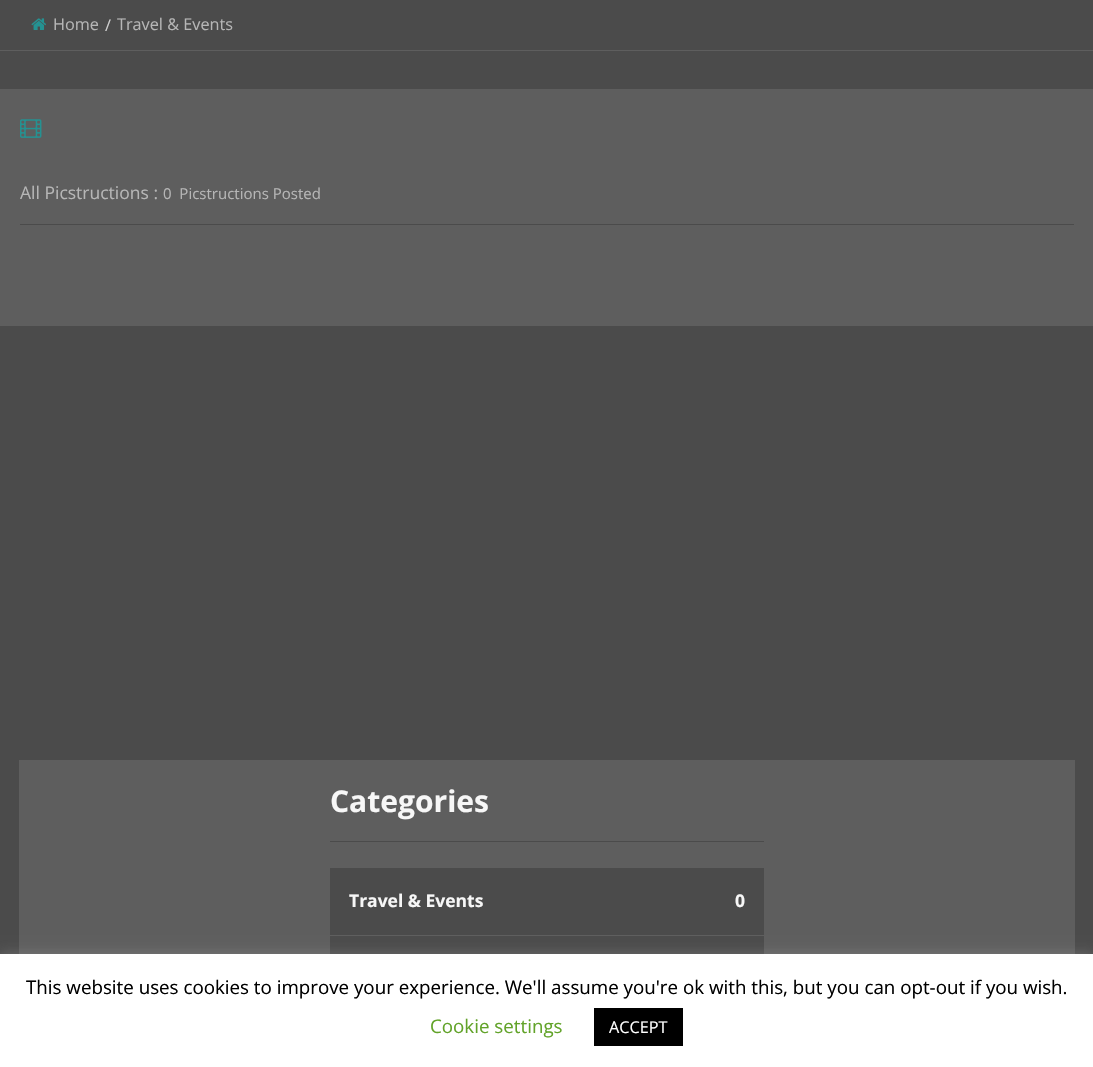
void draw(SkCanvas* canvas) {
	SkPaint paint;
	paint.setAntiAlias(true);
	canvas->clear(0xff4b4b4b);
	paint.setColor(0xff5e5e5e);
	canvas->drawRect(SkRect::MakeXYWH(0, 50, 1093, 1), paint);
	canvas->drawImageRect(SkImages::DeferredFromEncodedData(SkData::MakeFromFileName("img1.png")), SkRect::MakeXYWH(31, 18, 15, 12), SkSamplingOptions());
	SkFont f1(fontMgr->matchFamilyStyle("Open Sans", SkFontStyle::Normal()), 16.25);
	f1.setSubpixel(true);
	paint.setColor(0xffb6b6b6);
	canvas->drawString("Home", 53, 30, f1, paint);
	paint.setColor(0xffd1d1d1);
	canvas->drawString("/", 105, 31, f1, paint);
	paint.setColor(0xffb6b6b6);
	canvas->drawString("Travel & Events", 117, 30, f1, paint);
	paint.setColor(0xff5e5e5e);
	canvas->drawRect(SkRect::MakeXYWH(0, 89, 1093, 237), paint);
	canvas->drawImageRect(SkImages::DeferredFromEncodedData(SkData::MakeFromFileName("img2.png")), SkRect::MakeXYWH(20, 119, 22, 19), SkSamplingOptions());
	paint.setColor(0xff4b4b4b);
	canvas->drawRect(SkRect::MakeXYWH(20, 224, 1054, 1), paint);
	SkFont f2(fontMgr->matchFamilyStyle("Open Sans", SkFontStyle::Normal()), 17.5);
	f2.setSubpixel(true);
	paint.setColor(0xffb6b6b6);
	canvas->drawString("All Picstructions :", 20, 199, f2, paint);
	SkFont f3(fontMgr->matchFamilyStyle("Open Sans", SkFontStyle::Normal()), 15);
	f3.setSubpixel(true);
	canvas->drawString("0  Picstructions Posted", 163, 199, f3, paint);
	paint.setColor(0xff5e5e5e);
	canvas->drawRect(SkRect::MakeXYWH(19, 760, 1056, 194), paint);
	paint.setColor(0xff4b4b4b);
	canvas->drawRect(SkRect::MakeXYWH(330, 841, 434, 1), paint);
	SkFont f4(fontMgr->matchFamilyStyle("Open Sans", SkFontStyle::Bold()), 30);
	f4.setSubpixel(true);
	paint.setColor(0xfff7f7f7);
	canvas->drawString("Categories", 330, 812, f4, paint);
	paint.setColor(0xff4b4b4b);
	canvas->drawRect(SkRect::MakeXYWH(330, 868, 434, 67), paint);
	SkFont f5(fontMgr->matchFamilyStyle("Open Sans", SkFontStyle::Bold()), 17.5);
	f5.setSubpixel(true);
	paint.setColor(0xfff7f7f7);
	canvas->drawString("Travel & Events", 349, 907, f5, paint);
	canvas->drawString("0", 735, 907, f5, paint);
	paint.setColor(0xff4b4b4b);
	canvas->drawRect(SkRect::MakeXYWH(330, 936, 434, 18), paint);
	paint.setColor(0x4dacabab);
	paint.setMaskFilter(SkMaskFilter::MakeBlur(kNormal_SkBlurStyle, 6));
	canvas->drawRect(SkRect::MakeXYWH(0, 953, 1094, 113), paint);
	paint.setMaskFilter(nullptr);
	paint.setColor(0xffffffff);
	canvas->drawRect(SkRect::MakeXYWH(0, 954, 1093, 113), paint);
	SkFont f6(fontMgr->matchFamilyStyle("Open Sans", SkFontStyle::Normal()), 18.75);
	f6.setSubpixel(true);
	paint.setColor(0xff000000);
	canvas->drawString("This website uses cookies to improve your experience. We'll assume you're ok with this, but you can opt-out if you wish.", 26, 994, f6, paint);
	paint.setColor(0xff62a329);
	canvas->drawString("Cookie settings", 430, 1033, f6, paint);
	paint.setColor(0xff000000);
	canvas->drawRect(SkRect::MakeXYWH(594, 1008, 89, 38), paint);
	paint.setColor(0xffffffff);
	canvas->drawString("ACCEPT", 609, 1033, f1, paint);
}
